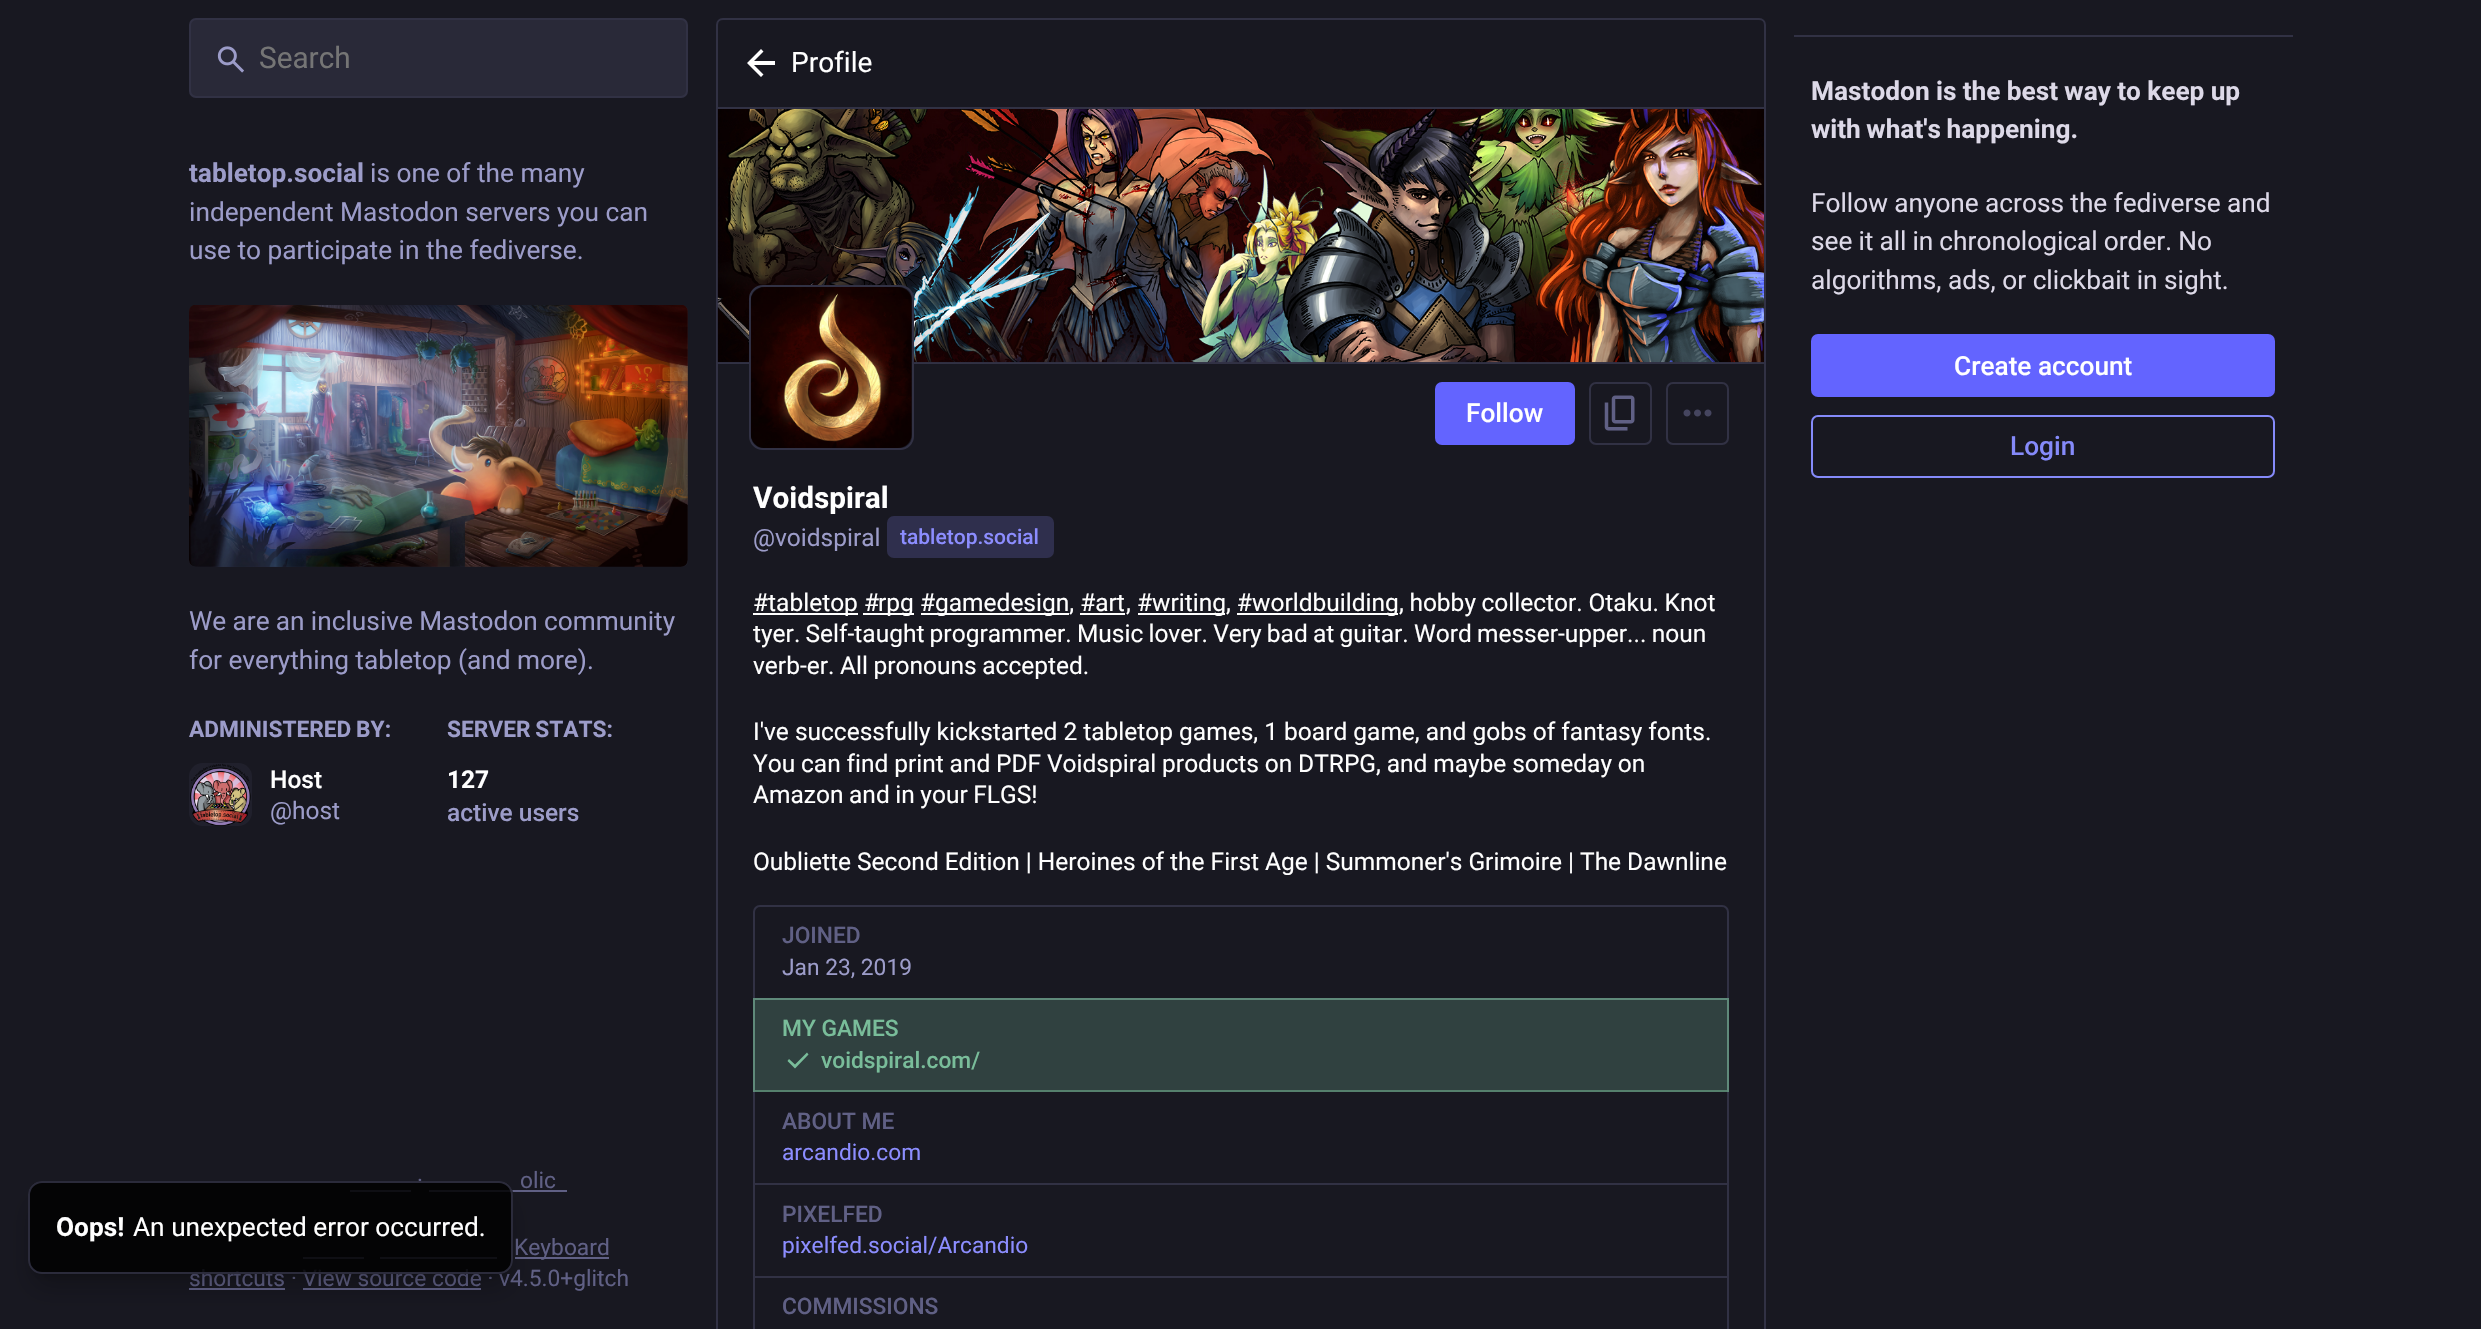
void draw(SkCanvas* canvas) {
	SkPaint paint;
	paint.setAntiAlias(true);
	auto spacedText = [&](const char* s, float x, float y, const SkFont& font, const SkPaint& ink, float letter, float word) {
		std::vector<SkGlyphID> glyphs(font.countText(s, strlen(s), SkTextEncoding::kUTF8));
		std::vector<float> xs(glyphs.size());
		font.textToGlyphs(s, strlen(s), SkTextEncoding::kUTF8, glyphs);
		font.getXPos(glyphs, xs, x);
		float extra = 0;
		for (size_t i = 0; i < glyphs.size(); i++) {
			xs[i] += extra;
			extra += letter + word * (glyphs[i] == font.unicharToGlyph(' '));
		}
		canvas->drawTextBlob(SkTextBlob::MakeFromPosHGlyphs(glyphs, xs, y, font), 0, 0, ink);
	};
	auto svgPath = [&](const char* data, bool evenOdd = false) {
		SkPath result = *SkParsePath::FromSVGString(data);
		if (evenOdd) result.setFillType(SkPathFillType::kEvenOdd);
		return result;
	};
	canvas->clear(0xff181821);
	paint.setColor(0xff292938);
	canvas->drawRoundRect(SkRect::MakeXYWH(190, 19, 497, 78), 6, 6, paint);
	paint.setStroke(true);
	paint.setStrokeWidth(2);
	paint.setColor(0xff313144);
	canvas->drawRoundRect(SkRect::MakeXYWH(190, 19, 497, 78), 6, 6, paint);
	canvas->drawImageRect(SkImages::DeferredFromEncodedData(SkData::MakeFromFileName("img1.png")), SkRect::MakeXYWH(217, 46, 27, 27), SkSamplingOptions());
	SkFont f1(fontMgr->matchFamilyStyle("Roboto", SkFontStyle::Normal()), 29.75);
	f1.setSubpixel(true);
	paint.setStroke(false);
	paint.setColor(0xff757575);
	canvas->drawString("Search", 259, 68, f1, paint);
	SkFont f2(fontMgr->matchFamilyStyle("Roboto", SkFontStyle::Bold()), 26.25);
	f2.setSubpixel(true);
	paint.setColor(0xff9c9cc9);
	canvas->drawString("tabletop.social", 189, 182, f2, paint);
	SkFont f3(fontMgr->matchFamilyStyle("Roboto", SkFontStyle::Normal()), 26.25);
	f3.setSubpixel(true);
	canvas->drawString("is one of the many", 370, 182, f3, paint);
	canvas->drawString("independent Mastodon servers you can", 189, 221, f3, paint);
	canvas->drawString("use to participate in the fediverse.", 189, 259, f3, paint);
	paint.setColor(0xff292938);
	canvas->drawRoundRect(SkRect::MakeXYWH(189, 305, 499, 262), 7, 7, paint);
	canvas->drawImageRect(SkImages::DeferredFromEncodedData(SkData::MakeFromFileName("img2.png")), SkRect::MakeXYWH(189, 305, 499, 262), SkSamplingOptions());
	paint.setColor(0xff9c9cc9);
	spacedText("We are an inclusive Mastodon community", 189, 630, f3, paint, 0, -0.25);
	spacedText("for everything tabletop (and more).", 189, 669, f3, paint, 0, -0.1);
	SkFont f4(fontMgr->matchFamilyStyle("Roboto", SkFontStyle::Bold()), 22.75);
	f4.setSubpixel(true);
	spacedText("ADMINISTERED BY:", 189, 737, f4, paint, 0, -1);
	paint.setColor(0xff20202c);
	canvas->drawRoundRect(SkRect::MakeXYWH(189, 763, 63, 63), 14, 14, paint);
	canvas->drawImageRect(SkImages::DeferredFromEncodedData(SkData::MakeFromFileName("img3.png")), SkRect::MakeXYWH(190, 763, 61, 63), SkSamplingOptions());
	SkFont f5(fontMgr->matchFamilyStyle("Roboto", SkFontStyle(500, SkFontStyle::kNormal_Width, SkFontStyle::kUpright_Slant)), 24.5);
	f5.setSubpixel(true);
	paint.setColor(0xffffffff);
	canvas->drawString("Host", 270, 788, f5, paint);
	SkFont f6(fontMgr->matchFamilyStyle("Roboto", SkFontStyle::Normal()), 24.5);
	f6.setSubpixel(true);
	paint.setColor(0xff9c9cc9);
	canvas->drawString("@host", 270, 819, f6, paint);
	spacedText("SERVER STATS:", 447, 737, f4, paint, 0, -1);
	SkFont f7(fontMgr->matchFamilyStyle("Roboto", SkFontStyle::Bold()), 24.5);
	f7.setSubpixel(true);
	paint.setColor(0xffffffff);
	canvas->drawString("127", 447, 788, f7, paint);
	paint.setColor(0xff9c9cc9);
	canvas->drawString("active users", 447, 821, f5, paint);
	SkFont f8(fontMgr->matchFamilyStyle("Roboto", SkFontStyle::Normal()), 22.75);
	f8.setSubpixel(true);
	paint.setColor(0xff606085);
	canvas->drawString("·", 417, 1188, f8, paint);
	canvas->drawString("olic", 520, 1188, f8, paint);
	canvas->drawRect(SkRect::MakeXYWH(429, 1190, 138, 2), paint);
	canvas->drawRect(SkRect::MakeXYWH(350, 1190, 61, 2), paint);
	canvas->drawRect(SkRect::MakeXYWH(303, 1257, 61, 2), paint);
	canvas->drawRect(SkRect::MakeXYWH(380, 1257, 117, 2), paint);
	canvas->drawRect(SkRect::MakeXYWH(515, 1257, 94, 2), paint);
	canvas->drawString("Keyboard", 514, 1255, f8, paint);
	canvas->drawString("shortcuts", 189, 1286, f8, paint);
	canvas->drawRect(SkRect::MakeXYWH(189, 1288, 96, 2), paint);
	canvas->drawString("· View source code · v4.5.0+glitch", 291, 1286, f8, paint);
	canvas->drawRect(SkRect::MakeXYWH(303, 1288, 178, 2), paint);
	paint.setColor(0xff313144);
	canvas->drawPath(svgPath("M716 108H1766V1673C1766 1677 1763 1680 1759 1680H723C719 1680 716 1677 716 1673ZM718 108H1764V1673C1764 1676 1762 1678 1759 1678H723C720 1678 718 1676 718 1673Z", true), paint);
	paint.setStroke(true);
	canvas->drawPath(svgPath("M723 19H1759C1762.5 19 1765 21.5 1765 25V108H717V25C717 21.5 719.5 19 723 19Z"), paint);
	paint.setStroke(false);
	paint.setColor(0xffffffff);
	canvas->drawPath(svgPath("M754 65L763.5 74.5L761 77L747 63L761 49L763.5 51.5L754 61H775V65Z"), paint);
	SkFont f9(fontMgr->matchFamilyStyle("Roboto", SkFontStyle::Normal()), 28);
	f9.setSubpixel(true);
	canvas->drawString("Profile", 791, 72, f9, paint);
	paint.setColor(0xff313144);
	canvas->drawRect(SkRect::MakeXYWH(718, 362, 1046, 2), paint);
	canvas->drawImageRect(SkImages::DeferredFromEncodedData(SkData::MakeFromFileName("img4.png")), SkRect::MakeXYWH(717, 109, 1047, 254), SkSamplingOptions());
	paint.setColor(0xff181821);
	canvas->drawRoundRect(SkRect::MakeXYWH(750, 286, 163, 163), 13, 13, paint);
	paint.setStroke(true);
	paint.setColor(0xff313144);
	canvas->drawRoundRect(SkRect::MakeXYWH(750, 286, 163, 163), 13, 13, paint);
	canvas->drawImageRect(SkImages::DeferredFromEncodedData(SkData::MakeFromFileName("img5.png")), SkRect::MakeXYWH(750, 287, 162, 161), SkSamplingOptions());
	paint.setStroke(false);
	paint.setColor(0xff6364ff);
	canvas->drawRoundRect(SkRect::MakeXYWH(1435, 382, 140, 63), 7, 7, paint);
	SkFont f10(fontMgr->matchFamilyStyle("Roboto", SkFontStyle(500, SkFontStyle::kNormal_Width, SkFontStyle::kUpright_Slant)), 26.25);
	f10.setSubpixel(true);
	paint.setColor(0xffffffff);
	canvas->drawString("Follow", 1466, 422, f10, paint);
	paint.setStroke(true);
	paint.setColor(0xff313144);
	canvas->drawRoundRect(SkRect::MakeXYWH(1590, 383, 61, 61), 6, 6, paint);
	canvas->drawImageRect(SkImages::DeferredFromEncodedData(SkData::MakeFromFileName("img6.png")), SkRect::MakeXYWH(1604, 395, 31, 36), SkSamplingOptions());
	canvas->drawRoundRect(SkRect::MakeXYWH(1667, 383, 61, 61), 6, 6, paint);
	canvas->drawImageRect(SkImages::DeferredFromEncodedData(SkData::MakeFromFileName("img7.png")), SkRect::MakeXYWH(1683, 409, 29, 8), SkSamplingOptions());
	SkFont f11(fontMgr->matchFamilyStyle("Roboto", SkFontStyle::Bold()), 29.75);
	f11.setSubpixel(true);
	paint.setStroke(false);
	paint.setColor(0xffffffff);
	canvas->drawString("Voidspiral", 753, 508, f11, paint);
	paint.setColor(0xff9c9cc9);
	canvas->drawString("@voidspiral", 753, 546, f6, paint);
	paint.setColor(0xff2f2f4d);
	canvas->drawRoundRect(SkRect::MakeXYWH(887, 516, 167, 42), 7, 7, paint);
	SkFont f12(fontMgr->matchFamilyStyle("Roboto", SkFontStyle(500, SkFontStyle::kNormal_Width, SkFontStyle::kUpright_Slant)), 21);
	f12.setSubpixel(true);
	paint.setColor(0xff8c8dff);
	canvas->drawString("tabletop.social", 900, 544, f12, paint);
	paint.setColor(0xffffffff);
	canvas->drawRect(SkRect::MakeXYWH(753, 613, 105, 2), paint);
	canvas->drawString("#tabletop #", 753, 611, f6, paint);
	canvas->drawRect(SkRect::MakeXYWH(863, 613, 51, 2), paint);
	canvas->drawString("rpg #", 878, 611, f6, paint);
	canvas->drawRect(SkRect::MakeXYWH(921, 613, 148, 2), paint);
	canvas->drawString("gamedesign, #art", 935, 611, f6, paint);
	canvas->drawString(", #", 1126, 611, f6, paint);
	canvas->drawRect(SkRect::MakeXYWH(1138, 613, 87, 2), paint);
	canvas->drawString("writing, #", 1152, 611, f6, paint);
	canvas->drawRect(SkRect::MakeXYWH(1237, 613, 161, 2), paint);
	canvas->drawString("worldbuilding", 1252, 611, f6, paint);
	spacedText(", hobby collector. Otaku. Knot", 1399, 611, f6, paint, 0, -0.5);
	canvas->drawRect(SkRect::MakeXYWH(1080, 613, 45, 2), paint);
	spacedText("tyer. Self-taught programmer. Music lover. Very bad at guitar. Word messer-upper... noun", 753, 642, f6, paint, 0, -0.9);
	spacedText("verb-er. All pronouns accepted.", 753, 674, f6, paint, 0, -0.5);
	canvas->drawString("I've successfully kickstarted 2 tabletop games, 1 board game, and gobs of fantasy fonts.", 753, 740, f6, paint);
	spacedText("You can find print and PDF Voidspiral products on DTRPG, and maybe someday on", 753, 772, f6, paint, 0, -0.25);
	spacedText("Amazon and in your FLGS!", 753, 803, f6, paint, 0, -0.5);
	spacedText("Oubliette Second Edition | Heroines of the First Age | Summoner's Grimoire | The Dawnline", 753, 870, f6, paint, 0, -0.1);
	paint.setStroke(true);
	paint.setColor(0xff313144);
	canvas->drawRoundRect(SkRect::MakeXYWH(754, 906, 974, 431), 6, 6, paint);
	paint.setStroke(false);
	canvas->drawRect(SkRect::MakeXYWH(754, 998, 973, 2), paint);
	SkFont f13(fontMgr->matchFamilyStyle("Roboto", SkFontStyle(500, SkFontStyle::kNormal_Width, SkFontStyle::kUpright_Slant)), 22.75);
	f13.setSubpixel(true);
	paint.setColor(0xff606085);
	canvas->drawString("JOINED", 782, 943, f13, paint);
	paint.setColor(0xff9c9cc9);
	canvas->drawString("Jan 23, 2019", 782, 975, f8, paint);
	paint.setColor(0x4079bd9a);
	canvas->drawRect(SkRect::MakeXYWH(753, 998, 976, 94), paint);
	paint.setStroke(true);
	paint.setColor(0x8079bd9a);
	canvas->drawRect(SkRect::MakeXYWH(754, 999, 974, 92), paint);
	paint.setStroke(false);
	paint.setColor(0xff79bd9a);
	canvas->drawString("MY GAMES", 782, 1036, f13, paint);
	canvas->drawPath(svgPath("M795 1068.5L787.5 1061L789 1059L795 1064.5L807 1052.5L808.5 1054.5Z"), paint);
	canvas->drawString("voidspiral.com/", 821, 1068, f13, paint);
	paint.setColor(0xff313144);
	canvas->drawRect(SkRect::MakeXYWH(754, 1183, 973, 2), paint);
	paint.setColor(0xff606085);
	canvas->drawString("ABOUT ME", 782, 1129, f13, paint);
	paint.setColor(0xff8c8dff);
	canvas->drawString("arcandio.com", 782, 1160, f8, paint);
	paint.setColor(0xff313144);
	canvas->drawRect(SkRect::MakeXYWH(754, 1276, 973, 2), paint);
	paint.setColor(0xff606085);
	canvas->drawString("PIXELFED", 782, 1222, f13, paint);
	paint.setColor(0xff8c8dff);
	canvas->drawString("pixelfed.social/Arcandio", 782, 1253, f8, paint);
	paint.setColor(0xff606085);
	canvas->drawString("COMMISSIONS", 782, 1314, f13, paint);
	paint.setColor(0xff313144);
	canvas->drawRect(SkRect::MakeXYWH(1794, 35, 499, 2), paint);
	paint.setColor(0xffddd9e8);
	spacedText("Mastodon is the best way to keep up", 1811, 100, f2, paint, 0, -0.25);
	spacedText("with what's happening.", 1811, 138, f2, paint, 0, -1);
	spacedText("Follow anyone across the fediverse and", 1811, 212, f3, paint, 0, -0.25);
	spacedText("see it all in chronological order. No", 1811, 250, f3, paint, 0, -0.5);
	canvas->drawString("algorithms, ads, or clickbait in sight.", 1811, 289, f3, paint);
	paint.setColor(0xff6364ff);
	canvas->drawRoundRect(SkRect::MakeXYWH(1811, 334, 464, 63), 7, 7, paint);
	paint.setColor(0xffffffff);
	canvas->drawString("Create account", 1954, 375, f10, paint);
	paint.setStroke(true);
	paint.setColor(0xff858afa);
	canvas->drawRoundRect(SkRect::MakeXYWH(1812, 416, 462, 61), 6, 6, paint);
	paint.setStroke(false);
	canvas->drawString("Login", 2010, 455, f10, paint);
	canvas->save();
	canvas->clipPath(svgPath("M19 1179H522V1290H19ZM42 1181H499C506.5 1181 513 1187.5 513 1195V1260C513 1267.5 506.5 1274 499 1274H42C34.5 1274 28 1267.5 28 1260V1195C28 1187.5 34.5 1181 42 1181Z", true), true);
	paint.setColor(0x40000000);
	paint.setMaskFilter(SkMaskFilter::MakeBlur(kNormal_SkBlurStyle, 5));
	canvas->drawRoundRect(SkRect::MakeXYWH(35, 1195, 471, 79), 7, 7, paint);
	paint.setMaskFilter(nullptr);
	canvas->restore();
	canvas->save();
	canvas->clipPath(svgPath("M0 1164H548V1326H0ZM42 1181H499C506.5 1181 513 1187.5 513 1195V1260C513 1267.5 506.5 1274 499 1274H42C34.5 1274 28 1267.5 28 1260V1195C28 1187.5 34.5 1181 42 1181Z", true), true);
	paint.setMaskFilter(SkMaskFilter::MakeBlur(kNormal_SkBlurStyle, 13));
	canvas->drawRoundRect(SkRect::MakeXYWH(33, 1204, 475, 82), 9, 9, paint);
	paint.setMaskFilter(nullptr);
	canvas->restore();
	paint.setColor(0xd9000000);
	canvas->drawRoundRect(SkRect::MakeXYWH(28, 1181, 485, 93), 14, 14, paint);
	paint.setStroke(true);
	paint.setColor(0xd9313144);
	canvas->drawRoundRect(SkRect::MakeXYWH(29, 1182, 483, 91), 13, 13, paint);
	paint.setStroke(false);
	paint.setColor(0xffffffff);
	canvas->drawString("Oops!", 56, 1236, f2, paint);
	canvas->drawString("An unexpected error occurred.", 133, 1236, f3, paint);
}
